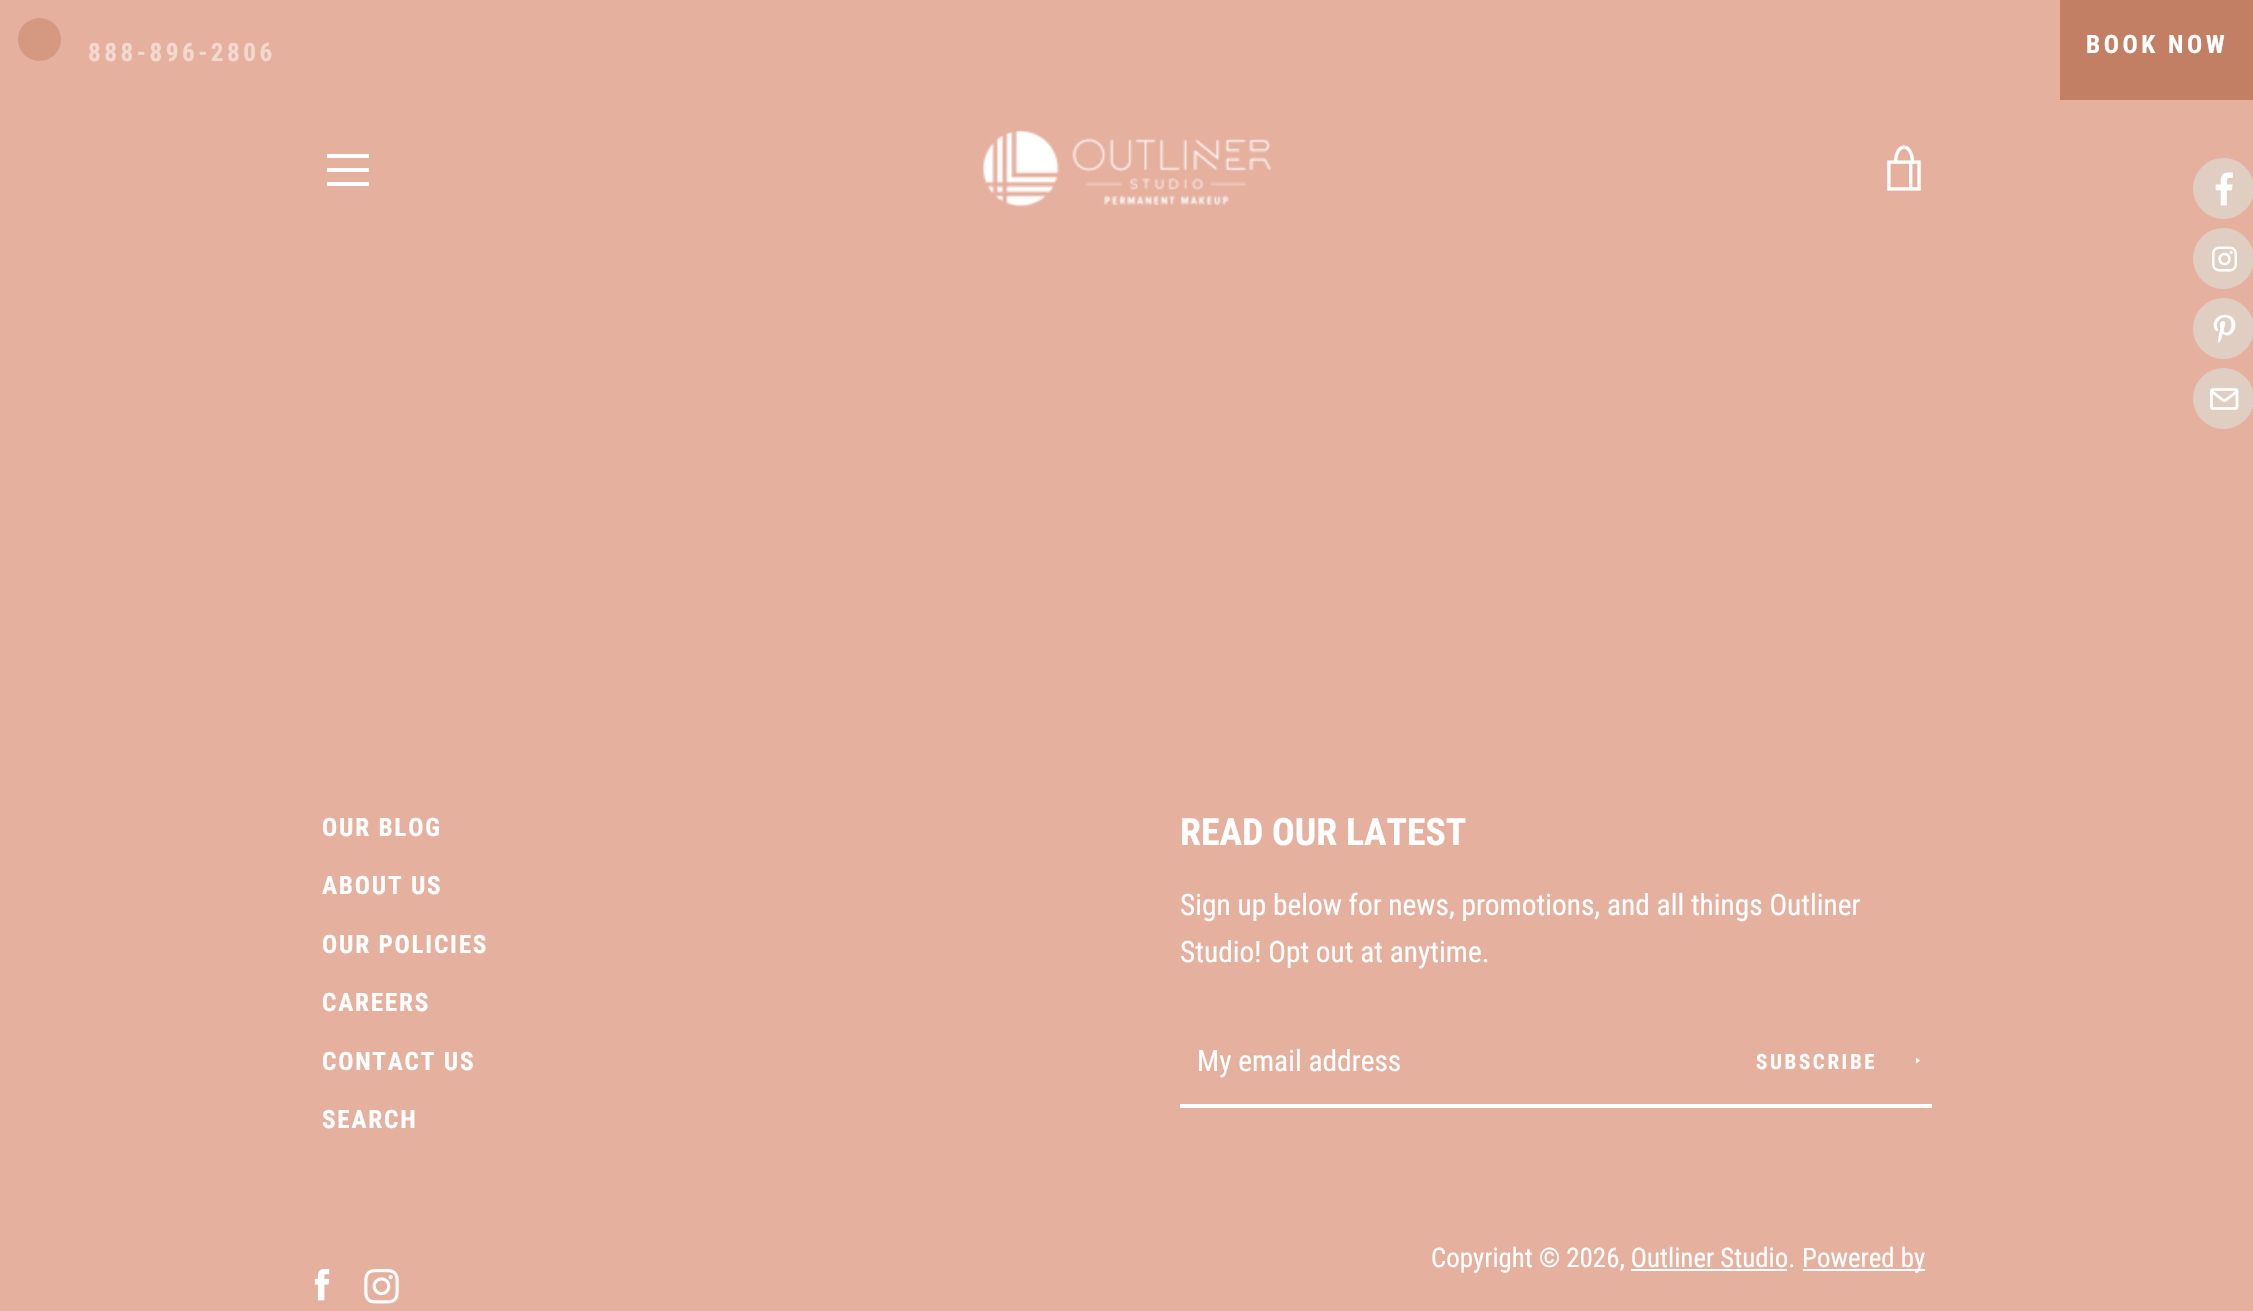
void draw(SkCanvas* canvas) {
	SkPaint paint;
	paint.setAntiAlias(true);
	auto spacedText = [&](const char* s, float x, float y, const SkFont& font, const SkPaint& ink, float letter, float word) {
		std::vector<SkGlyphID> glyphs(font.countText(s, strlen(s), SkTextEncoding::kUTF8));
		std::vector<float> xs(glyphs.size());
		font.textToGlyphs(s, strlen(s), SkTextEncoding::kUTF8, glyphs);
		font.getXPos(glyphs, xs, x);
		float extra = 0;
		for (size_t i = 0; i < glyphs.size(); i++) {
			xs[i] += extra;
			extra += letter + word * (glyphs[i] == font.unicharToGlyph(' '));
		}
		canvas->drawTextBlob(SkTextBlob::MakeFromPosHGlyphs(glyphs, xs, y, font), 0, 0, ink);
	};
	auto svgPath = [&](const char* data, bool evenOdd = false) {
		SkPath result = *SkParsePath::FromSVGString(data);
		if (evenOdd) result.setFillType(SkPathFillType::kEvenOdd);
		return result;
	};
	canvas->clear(0xffe6b09f);
	paint.setColor(0xffd59881);
	canvas->drawCircle(39.5, 39.5, 21.5, paint);
	SkFont f1(fontMgr->matchFamilyStyle("Roboto Condensed", SkFontStyle::Bold()), 25.25);
	f1.setSubpixel(true);
	paint.setColor(0xfff3d8cf);
	spacedText("888-896-2806", 88, 61, f1, paint, 3.5, 0);
	paint.setColor(0xffc37f63);
	canvas->drawRect(SkRect::MakeXYWH(2060, 0, 193, 100), paint);
	paint.setColor(0xffffffff);
	spacedText("BOOK NOW", 2086, 53, f1, paint, 3.5, 0);
	canvas->drawRect(SkRect::MakeXYWH(327, 154, 42, 4), paint);
	canvas->drawRect(SkRect::MakeXYWH(327, 168, 42, 4), paint);
	canvas->drawRect(SkRect::MakeXYWH(327, 182, 42, 4), paint);
	canvas->drawImageRect(SkImages::DeferredFromEncodedData(SkData::MakeFromFileName("img1.png")), SkRect::MakeXYWH(982, 130, 289, 77), SkSamplingOptions());
	canvas->drawImageRect(SkImages::DeferredFromEncodedData(SkData::MakeFromFileName("img2.png")), SkRect::MakeXYWH(1887, 145, 34, 46), SkSamplingOptions());
	paint.setColor(0xffe1cec3);
	canvas->drawCircle(2223.5, 188.5, 30.5, paint);
	canvas->drawImageRect(SkImages::DeferredFromEncodedData(SkData::MakeFromFileName("img3.png")), SkRect::MakeXYWH(2215, 172, 18, 34), SkSamplingOptions());
	canvas->drawCircle(2223.5, 258.5, 30.5, paint);
	canvas->drawImageRect(SkImages::DeferredFromEncodedData(SkData::MakeFromFileName("img4.png")), SkRect::MakeXYWH(2212, 246, 25, 26), SkSamplingOptions());
	canvas->drawCircle(2223.5, 328.5, 30.5, paint);
	canvas->drawImageRect(SkImages::DeferredFromEncodedData(SkData::MakeFromFileName("img5.png")), SkRect::MakeXYWH(2213, 314, 23, 29), SkSamplingOptions());
	canvas->drawCircle(2223.5, 398.5, 30.5, paint);
	canvas->drawImageRect(SkImages::DeferredFromEncodedData(SkData::MakeFromFileName("img6.png")), SkRect::MakeXYWH(2210, 388, 29, 22), SkSamplingOptions());
	paint.setColor(0xffffffff);
	spacedText("OUR BLOG", 322, 836, f1, paint, 1.75, 0);
	spacedText("ABOUT US", 322, 894, f1, paint, 1.75, 0);
	spacedText("OUR POLICIES", 322, 953, f1, paint, 1.75, 0);
	spacedText("CAREERS", 322, 1011, f1, paint, 1.75, 0);
	spacedText("CONTACT US", 322, 1070, f1, paint, 1.75, 0);
	spacedText("SEARCH", 322, 1128, f1, paint, 1.75, 0);
	SkFont f2(fontMgr->matchFamilyStyle("Roboto Condensed", SkFontStyle::Bold()), 37.75);
	f2.setSubpixel(true);
	canvas->drawString("READ OUR LATEST", 1180, 845, f2, paint);
	SkFont f3(fontMgr->matchFamilyStyle("Roboto Condensed", SkFontStyle::Normal()), 29.4);
	f3.setSubpixel(true);
	canvas->drawString("Sign up below for news, promotions, and all things Outliner", 1180, 915, f3, paint);
	canvas->drawString("Studio! Opt out at anytime.", 1180, 962, f3, paint);
	canvas->drawRect(SkRect::MakeXYWH(1180, 1104, 752, 4), paint);
	canvas->drawString("My email address", 1197, 1071, f3, paint);
	SkFont f4(fontMgr->matchFamilyStyle("Roboto Condensed", SkFontStyle::Bold()), 21);
	f4.setSubpixel(true);
	spacedText("SUBSCRIBE", 1756, 1069, f4, paint, 2.6, 0);
	canvas->drawPath(svgPath("M1920 1060.5L1916 1063.5V1057.5Z"), paint);
	SkFont f5(fontMgr->matchFamilyStyle("Roboto Condensed", SkFontStyle::Normal()), 26.9);
	f5.setSubpixel(true);
	canvas->drawString("Copyright © 2026, Outliner Studio.", 1431, 1267, f5, paint);
	canvas->drawRect(SkRect::MakeXYWH(1631, 1269, 156, 2), paint);
	canvas->drawRect(SkRect::MakeXYWH(1803, 1269, 122, 2), paint);
	canvas->drawString("Powered by", 1802, 1267, f5, paint);
	canvas->drawImageRect(SkImages::DeferredFromEncodedData(SkData::MakeFromFileName("img7.png")), SkRect::MakeXYWH(314, 1269, 16, 32), SkSamplingOptions());
	canvas->drawImageRect(SkImages::DeferredFromEncodedData(SkData::MakeFromFileName("img8.png")), SkRect::MakeXYWH(364, 1269, 35, 35), SkSamplingOptions());
}
